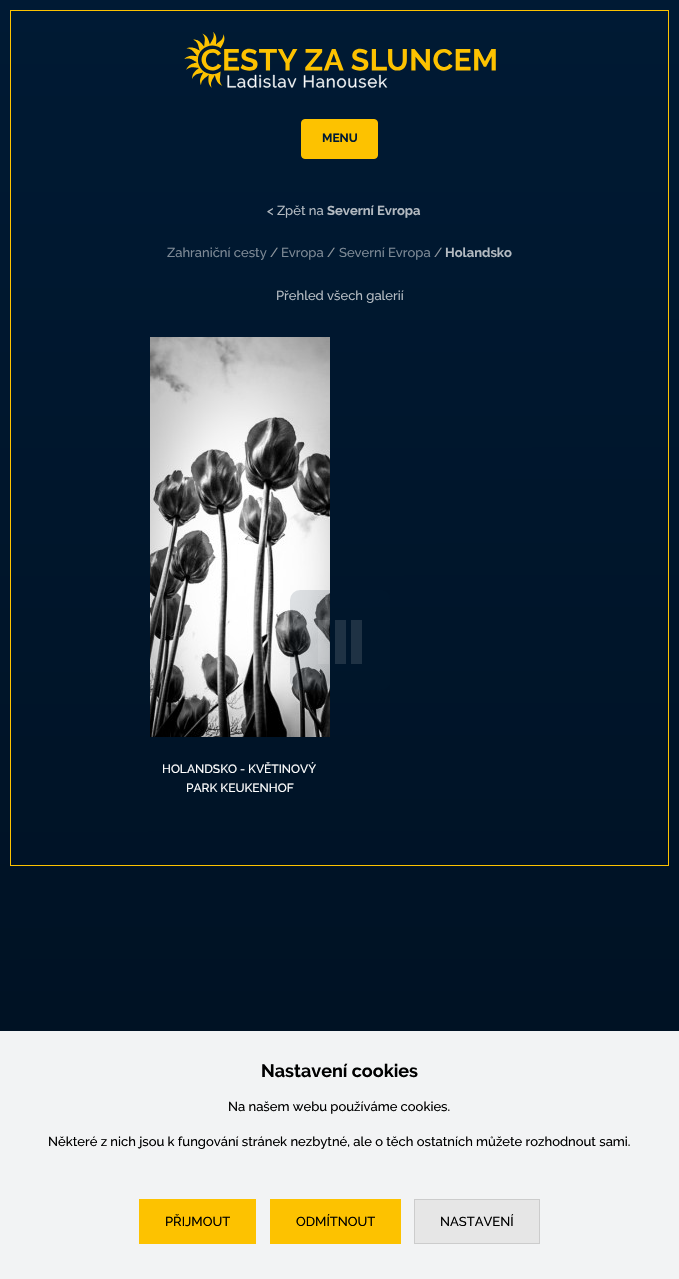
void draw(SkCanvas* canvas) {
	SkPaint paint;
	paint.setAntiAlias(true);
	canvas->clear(0xffffffff);
	{
		const SkColor colors[] = {0xff001a34, 0xff001020};
		const float stops[] = {0, 1};
		const SkPoint ends[] = {{339, 0}, {340, 1279}};
		paint.setShader(SkGradientShader::MakeLinear(ends, colors, stops, 2, SkTileMode::kClamp));
		paint.setAlpha(255);
	}
	canvas->drawRect(SkRect::MakeXYWH(0, 0, 679, 1031), paint);
	{
		const SkColor colors[] = {0xfff2f4f5, 0xfff2f3f4};
		const float stops[] = {0, 1};
		const SkPoint ends[] = {{339, 0}, {340, 1279}};
		paint.setShader(SkGradientShader::MakeLinear(ends, colors, stops, 2, SkTileMode::kClamp));
		paint.setAlpha(255);
	}
	canvas->drawRect(SkRect::MakeXYWH(0, 1031, 679, 248), paint);
	paint.setStroke(true);
	paint.setStrokeWidth(1);
	paint.setShader(nullptr);
	paint.setColor(0xfffdc200);
	canvas->drawRect(SkRect::MakeXYWH(10.5, 10.5, 658, 855), paint);
	canvas->drawImageRect(SkImages::DeferredFromEncodedData(SkData::MakeFromFileName("img1.png")), SkRect::MakeXYWH(184, 32, 312, 56), SkSamplingOptions());
	paint.setStroke(false);
	canvas->drawRoundRect(SkRect::MakeXYWH(301.5, 119.5, 76, 39), 3.5, 3.5, paint);
	paint.setStroke(true);
	canvas->drawRoundRect(SkRect::MakeXYWH(301.5, 119.5, 76, 39), 3.5, 3.5, paint);
	SkFont f1(fontMgr->matchFamilyStyle("Raleway", SkFontStyle::Bold()), 12);
	f1.setSubpixel(true);
	paint.setStroke(false);
	paint.setColor(0xff001a34);
	canvas->drawString("MENU", 322, 142, f1, paint);
	SkFont f2(fontMgr->matchFamilyStyle("Raleway", SkFontStyle(500, SkFontStyle::kNormal_Width, SkFontStyle::kUpright_Slant)), 13);
	f2.setSubpixel(true);
	paint.setColor(0xffb3bac1);
	canvas->drawString("< Zpět na", 267, 215, f2, paint);
	SkFont f3(fontMgr->matchFamilyStyle("Raleway", SkFontStyle::Bold()), 13);
	f3.setSubpixel(true);
	canvas->drawString("Severní Evropa", 327, 215, f3, paint);
	paint.setColor(0xff7d8995);
	canvas->drawString("Zahraniční cesty", 167, 257, f2, paint);
	paint.setColor(0xff8f969d);
	canvas->drawString("/", 270, 257, f2, paint);
	paint.setColor(0xff7d8995);
	canvas->drawString("Evropa", 281, 257, f2, paint);
	paint.setColor(0xff8f969d);
	canvas->drawString("/", 327, 257, f2, paint);
	paint.setColor(0xff7d8995);
	canvas->drawString("Severní Evropa", 339, 257, f2, paint);
	paint.setColor(0xff8f969d);
	canvas->drawString("/", 434, 257, f2, paint);
	paint.setColor(0xffb3bac1);
	canvas->drawString("Holandsko", 445, 257, f3, paint);
	canvas->drawString("Přehled všech galerií", 276, 300, f2, paint);
	canvas->drawImageRect(SkImages::DeferredFromEncodedData(SkData::MakeFromFileName("img2.png")), SkRect::MakeXYWH(150, 337, 180, 400), SkSamplingOptions());
	SkFont f4(fontMgr->matchFamilyStyle("Raleway", SkFontStyle(500, SkFontStyle::kNormal_Width, SkFontStyle::kUpright_Slant)), 12);
	f4.setSubpixel(true);
	paint.setColor(0xffffffff);
	canvas->drawString("HOLANDSKO - KVĚTINOVÝ", 162, 773, f4, paint);
	canvas->drawString("PARK KEUKENHOF", 186, 792, f4, paint);
	paint.setColor(0x1f001a34);
	canvas->drawRoundRect(SkRect::MakeXYWH(290, 590, 100, 100), 10, 10, paint);
	paint.setColor(0xff1f3244);
	canvas->drawRect(SkRect::MakeXYWH(335, 620, 11, 44), paint);
	paint.setColor(0x1fffffff);
	canvas->drawRect(SkRect::MakeXYWH(318, 620, 11, 44), paint);
	paint.setColor(0xff1f3244);
	canvas->drawRect(SkRect::MakeXYWH(351, 620, 11, 44), paint);
	SkFont f5(fontMgr->matchFamilyStyle("Raleway", SkFontStyle::Bold()), 18);
	f5.setSubpixel(true);
	paint.setColor(0xff000000);
	canvas->drawString("Nastavení cookies", 261, 1077, f5, paint);
	canvas->drawString("Na našem webu používáme cookies.", 228, 1111, f2, paint);
	canvas->drawString("Některé z nich jsou k fungování stránek nezbytné, ale o těch ostatních můžete rozhodnout sami.", 48, 1146, f2, paint);
	paint.setColor(0xfffdc200);
	canvas->drawRect(SkRect::MakeXYWH(139, 1199, 117, 45), paint);
	paint.setColor(0xff000000);
	canvas->drawString("PŘIJMOUT", 165, 1226, f2, paint);
	paint.setColor(0xfffdc200);
	canvas->drawRect(SkRect::MakeXYWH(270, 1199, 131, 45), paint);
	paint.setColor(0xff000000);
	canvas->drawString("ODMÍTNOUT", 296, 1226, f2, paint);
	paint.setColor(0xffe6e6e6);
	canvas->drawRect(SkRect::MakeXYWH(414.5, 1199.5, 125, 44), paint);
	paint.setStroke(true);
	paint.setColor(0xffcccccc);
	canvas->drawRect(SkRect::MakeXYWH(414.5, 1199.5, 125, 44), paint);
	paint.setStroke(false);
	paint.setColor(0xff000000);
	canvas->drawString("NASTAVENÍ", 440, 1226, f2, paint);
}
